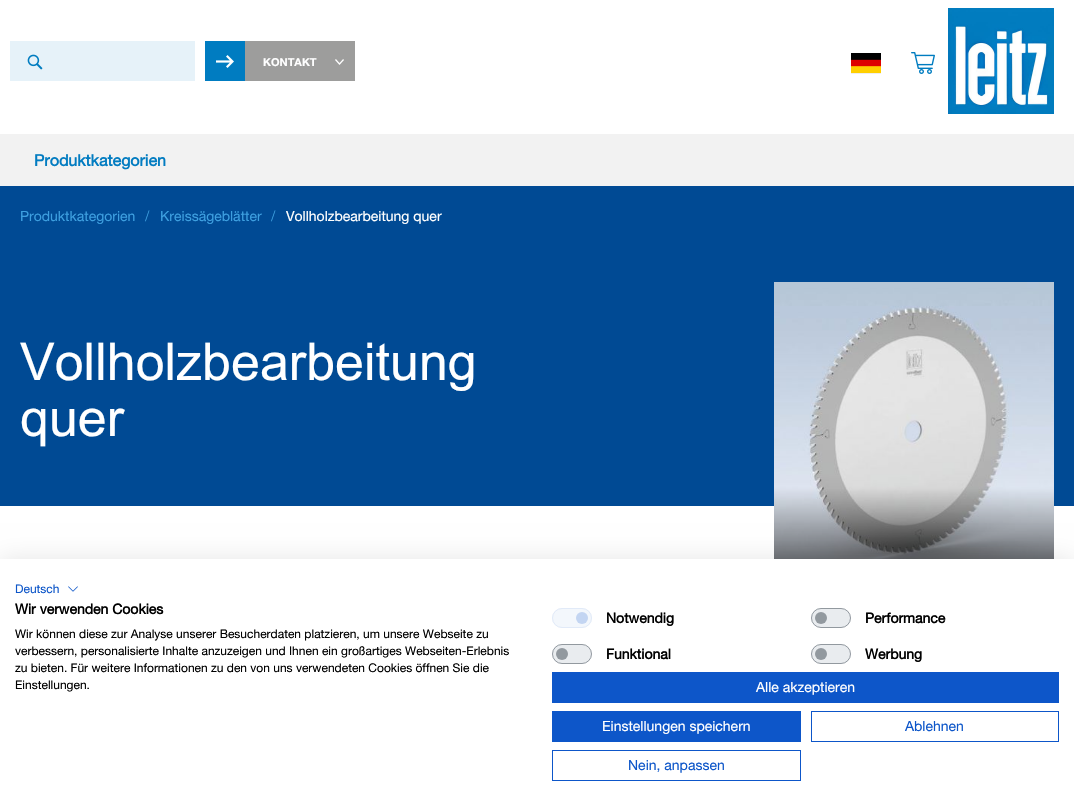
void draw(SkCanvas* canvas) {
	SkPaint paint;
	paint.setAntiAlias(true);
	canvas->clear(0xffffffff);
	paint.setColor(0xffe6f2f9);
	canvas->drawRect(SkRect::MakeXYWH(10, 41, 185, 40), paint);
	canvas->drawImageRect(SkImages::DeferredFromEncodedData(SkData::MakeFromFileName("img1.png")), SkRect::MakeXYWH(27, 54, 16, 16), SkSamplingOptions());
	paint.setColor(0xff007cc1);
	canvas->drawRect(SkRect::MakeXYWH(205, 41, 40, 40), paint);
	paint.setColor(0xff9d9d9c);
	canvas->drawRect(SkRect::MakeXYWH(245, 41, 110, 40), paint);
	canvas->drawImageRect(SkImages::DeferredFromEncodedData(SkData::MakeFromFileName("img2.png")), SkRect::MakeXYWH(216, 55, 18, 13), SkSamplingOptions());
	SkFont f1(fontMgr->matchFamilyStyle("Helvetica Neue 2", SkFontStyle::Bold()), 11);
	f1.setSubpixel(true);
	paint.setColor(0xffffffff);
	canvas->drawString("KONTAKT", 263, 66, f1, paint);
	canvas->drawImageRect(SkImages::DeferredFromEncodedData(SkData::MakeFromFileName("img3.png")), SkRect::MakeXYWH(335, 59, 9, 6), SkSamplingOptions());
	paint.setColor(0xffeeeeee);
	canvas->drawRect(SkRect::MakeXYWH(851, 73, 30, 1), paint);
	canvas->drawImageRect(SkImages::DeferredFromEncodedData(SkData::MakeFromFileName("img4.png")), SkRect::MakeXYWH(851, 53, 30, 20), SkSamplingOptions());
	canvas->drawImageRect(SkImages::DeferredFromEncodedData(SkData::MakeFromFileName("img5.png")), SkRect::MakeXYWH(911, 52, 24, 22), SkSamplingOptions());
	canvas->drawImageRect(SkImages::DeferredFromEncodedData(SkData::MakeFromFileName("img6.png")), SkRect::MakeXYWH(948, 8, 106, 106), SkSamplingOptions());
	paint.setColor(0xfff2f2f2);
	canvas->drawRect(SkRect::MakeXYWH(0, 134, 1074, 52), paint);
	SkFont f2(fontMgr->matchFamilyStyle("Helvetica Neue", SkFontStyle::Bold()), 16);
	f2.setSubpixel(true);
	paint.setColor(0xff027cc1);
	canvas->drawString("Produktkategorien", 34, 166, f2, paint);
	paint.setColor(0xff004a94);
	canvas->drawRect(SkRect::MakeXYWH(0, 186, 1074, 320), paint);
	SkFont f3(fontMgr->matchFamilyStyle("Helvetica Neue", SkFontStyle::Normal()), 14);
	f3.setSubpixel(true);
	paint.setColor(0xff3d9fe0);
	canvas->drawString("Produktkategorien", 20, 221, f3, paint);
	SkFont f4(fontMgr->matchFamilyStyle("Liberation Serif", SkFontStyle::Normal()), 16);
	f4.setSubpixel(true);
	canvas->drawString("/", 145, 221, f4, paint);
	canvas->drawString("Kreissägeblätter", 160, 221, f3, paint);
	canvas->drawString("/", 271, 221, f4, paint);
	paint.setColor(0xffffffff);
	canvas->drawString("Vollholzbearbeitung quer", 286, 221, f3, paint);
	SkFont f5(fontMgr->matchFamilyStyle("Arial", SkFontStyle::Normal()), 52);
	f5.setSubpixel(true);
	canvas->drawString("Vollholzbearbeitung", 20, 380, f5, paint);
	canvas->drawString("quer", 20, 436, f5, paint);
	canvas->drawImageRect(SkImages::DeferredFromEncodedData(SkData::MakeFromFileName("img7.png")), SkRect::MakeXYWH(774, 282, 280, 277), SkSamplingOptions());
	paint.setColor(0x1a000000);
	paint.setMaskFilter(SkMaskFilter::MakeBlur(kNormal_SkBlurStyle, 12));
	canvas->drawRect(SkRect::MakeXYWH(0, 559, 1074, 249), paint);
	paint.setMaskFilter(nullptr);
	paint.setColor(0xffffffff);
	canvas->drawRect(SkRect::MakeXYWH(0, 559, 1074, 249), paint);
	SkFont f6(fontMgr->matchFamilyStyle("Helvetica Neue", SkFontStyle::Normal()), 12);
	f6.setSubpixel(true);
	paint.setColor(0xff0d56c9);
	canvas->drawString("Deutsch", 15, 593, f6, paint);
	canvas->drawImageRect(SkImages::DeferredFromEncodedData(SkData::MakeFromFileName("img8.png")), SkRect::MakeXYWH(68, 586, 10, 6), SkSamplingOptions());
	SkFont f7(fontMgr->matchFamilyStyle("Helvetica Neue", SkFontStyle::Bold()), 14);
	f7.setSubpixel(true);
	paint.setColor(0xff000000);
	canvas->drawString("Wir verwenden Cookies", 15, 614, f7, paint);
	canvas->drawString("Wir können diese zur Analyse unserer Besucherdaten platzieren, um unsere Webseite zu", 15, 638, f6, paint);
	canvas->drawString("verbessern, personalisierte Inhalte anzuzeigen und Ihnen ein großartiges Webseiten-Erlebnis", 15, 655, f6, paint);
	canvas->drawString("zu bieten. Für weitere Informationen zu den von uns verwendeten Cookies öffnen Sie die", 15, 672, f6, paint);
	canvas->drawString("Einstellungen.", 15, 689, f6, paint);
	paint.setColor(0xfff3f7fc);
	canvas->drawRoundRect(SkRect::MakeXYWH(552, 608, 40, 20), 10, 10, paint);
	paint.setColor(0xffc3d5f2);
	canvas->drawCircle(582, 618, 6, paint);
	paint.setStroke(true);
	paint.setStrokeWidth(1);
	paint.setColor(0xffe1eaf8);
	canvas->drawRoundRect(SkRect::MakeXYWH(552.5, 608.5, 39, 19), 9.5, 9.5, paint);
	paint.setStroke(false);
	paint.setColor(0xff000000);
	canvas->drawString("Notwendig", 606, 623, f7, paint);
	paint.setColor(0xffe9ecef);
	canvas->drawRoundRect(SkRect::MakeXYWH(811, 608, 40, 20), 10, 10, paint);
	paint.setColor(0xff92999f);
	canvas->drawCircle(821, 618, 6, paint);
	paint.setStroke(true);
	paint.setColor(0xb36c757d);
	canvas->drawRoundRect(SkRect::MakeXYWH(811.5, 608.5, 39, 19), 9.5, 9.5, paint);
	paint.setStroke(false);
	paint.setColor(0xff000000);
	canvas->drawString("Performance", 865, 623, f7, paint);
	paint.setColor(0xffe9ecef);
	canvas->drawRoundRect(SkRect::MakeXYWH(552, 644, 40, 20), 10, 10, paint);
	paint.setColor(0xff92999f);
	canvas->drawCircle(562, 654, 6, paint);
	paint.setStroke(true);
	paint.setColor(0xb36c757d);
	canvas->drawRoundRect(SkRect::MakeXYWH(552.5, 644.5, 39, 19), 9.5, 9.5, paint);
	paint.setStroke(false);
	paint.setColor(0xff000000);
	canvas->drawString("Funktional", 606, 659, f7, paint);
	paint.setColor(0xffe9ecef);
	canvas->drawRoundRect(SkRect::MakeXYWH(811, 644, 40, 20), 10, 10, paint);
	paint.setColor(0xff92999f);
	canvas->drawCircle(821, 654, 6, paint);
	paint.setStroke(true);
	paint.setColor(0xb36c757d);
	canvas->drawRoundRect(SkRect::MakeXYWH(811.5, 644.5, 39, 19), 9.5, 9.5, paint);
	paint.setStroke(false);
	paint.setColor(0xff000000);
	canvas->drawString("Werbung", 865, 659, f7, paint);
	paint.setColor(0xff0d56c9);
	canvas->drawRect(SkRect::MakeXYWH(552, 672, 507, 31), paint);
	paint.setColor(0xffffffff);
	canvas->drawString("Alle akzeptieren", 756, 692, f3, paint);
	paint.setColor(0xff0d56c9);
	canvas->drawRect(SkRect::MakeXYWH(552, 711, 249, 31), paint);
	paint.setColor(0xffffffff);
	canvas->drawString("Einstellungen speichern", 602, 731, f3, paint);
	paint.setStroke(true);
	paint.setColor(0xff0d56c9);
	canvas->drawRect(SkRect::MakeXYWH(811.5, 711.5, 247, 30), paint);
	paint.setStroke(false);
	canvas->drawString("Ablehnen", 905, 731, f3, paint);
	paint.setStroke(true);
	canvas->drawRect(SkRect::MakeXYWH(552.5, 750.5, 248, 30), paint);
	paint.setStroke(false);
	canvas->drawString("Nein, anpassen", 628, 770, f3, paint);
}
